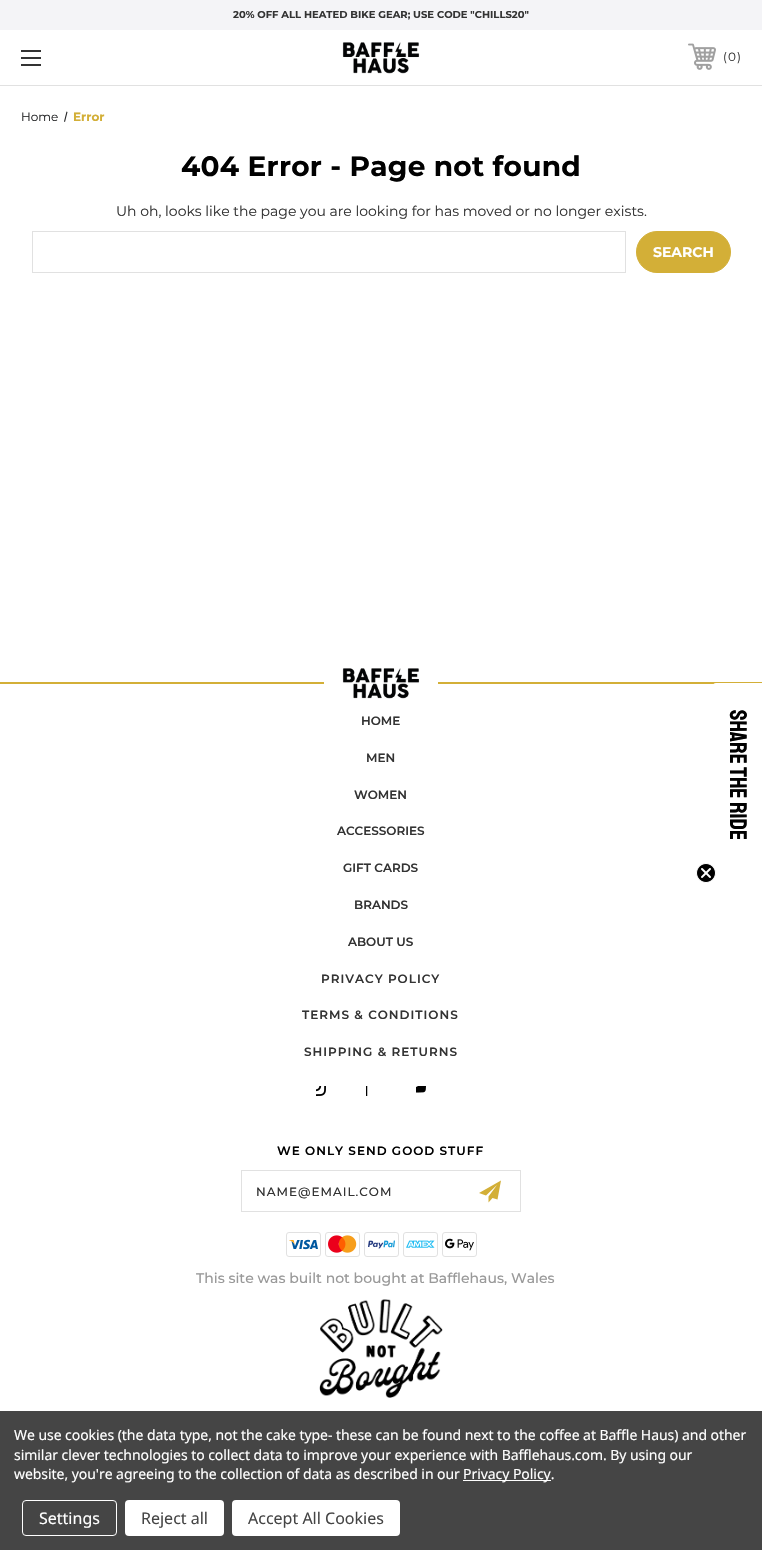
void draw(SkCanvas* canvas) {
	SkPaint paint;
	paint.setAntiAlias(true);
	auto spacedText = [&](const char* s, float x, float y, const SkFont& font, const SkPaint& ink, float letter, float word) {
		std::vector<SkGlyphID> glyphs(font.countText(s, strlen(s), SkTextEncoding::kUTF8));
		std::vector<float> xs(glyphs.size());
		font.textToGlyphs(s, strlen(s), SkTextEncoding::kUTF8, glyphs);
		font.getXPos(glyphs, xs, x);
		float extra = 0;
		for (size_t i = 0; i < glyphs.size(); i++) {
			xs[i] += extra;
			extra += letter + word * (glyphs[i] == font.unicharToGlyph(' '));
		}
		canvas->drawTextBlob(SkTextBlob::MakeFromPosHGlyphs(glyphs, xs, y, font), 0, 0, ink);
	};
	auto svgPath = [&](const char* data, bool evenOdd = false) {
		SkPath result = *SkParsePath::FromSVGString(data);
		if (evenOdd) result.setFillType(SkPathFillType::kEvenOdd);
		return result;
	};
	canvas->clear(0xffffffff);
	paint.setColor(0xfff4f4f7);
	canvas->drawRect(SkRect::MakeXYWH(0, 0, 762, 30), paint);
	SkFont f1(fontMgr->matchFamilyStyle("Montserrat", SkFontStyle::Bold()), 10);
	f1.setSubpixel(true);
	paint.setColor(0xff333333);
	canvas->drawString("20% OFF ALL HEATED BIKE GEAR; USE CODE \"CHILLS20\"", 233, 18, f1, paint);
	paint.setColor(0xffe1e1e1);
	canvas->drawRect(SkRect::MakeXYWH(0, 85, 762, 1), paint);
	paint.setColor(0xff333333);
	canvas->drawRect(SkRect::MakeXYWH(21, 57, 20, 2), paint);
	canvas->drawRect(SkRect::MakeXYWH(21, 50, 20, 2), paint);
	canvas->drawRect(SkRect::MakeXYWH(21, 64, 20, 2), paint);
	canvas->drawImageRect(SkImages::DeferredFromEncodedData(SkData::MakeFromFileName("img1.png")), SkRect::MakeXYWH(342, 42, 78, 32), SkSamplingOptions());
	canvas->drawImageRect(SkImages::DeferredFromEncodedData(SkData::MakeFromFileName("img2.png")), SkRect::MakeXYWH(688, 43, 28, 27), SkSamplingOptions());
	SkFont f2(fontMgr->matchFamilyStyle("Montserrat", SkFontStyle::Normal()), 12);
	f2.setSubpixel(true);
	canvas->drawString("(", 723, 61, f2, paint);
	canvas->drawString("0", 728, 61, f2, paint);
	canvas->drawString(")", 737, 61, f2, paint);
	paint.setColor(0xff242526);
	canvas->drawString("Home", 21, 121, f2, paint);
	canvas->drawPath(svgPath("M66.5 111.5L67.5 112L65 122L64 121.5Z"), paint);
	SkFont f3(fontMgr->matchFamilyStyle("Montserrat", SkFontStyle::Bold()), 12);
	f3.setSubpixel(true);
	paint.setColor(0xffd3af37);
	canvas->drawString("Error", 73, 121, f3, paint);
	SkFont f4(fontMgr->matchFamilyStyle("Montserrat", SkFontStyle::Bold()), 28);
	f4.setSubpixel(true);
	paint.setColor(0xff010101);
	spacedText("404 Error - Page not found", 181, 176, f4, paint, 0.25, 0);
	SkFont f5(fontMgr->matchFamilyStyle("Montserrat", SkFontStyle::Normal()), 14);
	f5.setSubpixel(true);
	paint.setColor(0xff333333);
	canvas->drawString("Uh oh, looks like the page you are looking for has moved or no longer exists.", 116, 216, f5, paint);
	paint.setStroke(true);
	paint.setStrokeWidth(1);
	paint.setColor(0xffe1e1e1);
	canvas->drawRect(SkRect::MakeXYWH(32.5, 231.5, 593, 41), paint);
	paint.setStroke(false);
	paint.setColor(0xffd3af37);
	canvas->drawRoundRect(SkRect::MakeXYWH(636.5, 231.5, 94, 41), 20.5, 20.5, paint);
	paint.setStroke(true);
	canvas->drawRoundRect(SkRect::MakeXYWH(636.5, 231.5, 94, 41), 20.5, 20.5, paint);
	SkFont f6(fontMgr->matchFamilyStyle("Montserrat", SkFontStyle::Bold()), 14);
	f6.setSubpixel(true);
	paint.setStroke(false);
	paint.setColor(0xffffffff);
	canvas->drawString("SEARCH", 653, 257, f6, paint);
	paint.setColor(0xffd3af37);
	canvas->drawRect(SkRect::MakeXYWH(0, 682, 762, 2), paint);
	paint.setColor(0xffffffff);
	canvas->drawRect(SkRect::MakeXYWH(324, 682, 114, 2), paint);
	canvas->drawImageRect(SkImages::DeferredFromEncodedData(SkData::MakeFromFileName("img3.png")), SkRect::MakeXYWH(342, 668, 78, 31), SkSamplingOptions());
	SkFont f7(fontMgr->matchFamilyStyle("Montserrat", SkFontStyle(600, SkFontStyle::kNormal_Width, SkFontStyle::kUpright_Slant)), 12);
	f7.setSubpixel(true);
	paint.setColor(0xff333333);
	canvas->drawString("HOME", 361, 725, f7, paint);
	canvas->drawString("MEN", 366, 762, f7, paint);
	canvas->drawString("WOMEN", 354, 799, f7, paint);
	canvas->drawString("ACCESSORIES", 337, 835, f7, paint);
	canvas->drawString("GIFT CARDS", 343, 872, f7, paint);
	canvas->drawString("BRANDS", 354, 909, f7, paint);
	canvas->drawString("ABOUT US", 348, 946, f7, paint);
	spacedText("PRIVACY POLICY", 321, 983, f7, paint, 1, 0);
	spacedText("TERMS & CONDITIONS", 302, 1019, f7, paint, 1, 0);
	spacedText("SHIPPING & RETURNS", 304, 1056, f7, paint, 1, 0);
	canvas->drawImageRect(SkImages::DeferredFromEncodedData(SkData::MakeFromFileName("img4.png")), SkRect::MakeXYWH(316, 1086, 10, 10), SkSamplingOptions());
	canvas->drawImageRect(SkImages::DeferredFromEncodedData(SkData::MakeFromFileName("img5.png")), SkRect::MakeXYWH(366, 1086, 2, 10), SkSamplingOptions());
	canvas->drawImageRect(SkImages::DeferredFromEncodedData(SkData::MakeFromFileName("img6.png")), SkRect::MakeXYWH(416, 1086, 10, 7), SkSamplingOptions());
	paint.setColor(0xff010101);
	spacedText("WE ONLY SEND GOOD STUFF", 277, 1155, f7, paint, 1, 0);
	paint.setStroke(true);
	paint.setColor(0xffe1e1e1);
	canvas->drawRect(SkRect::MakeXYWH(241.5, 1170.5, 279, 41), paint);
	SkFont f8(fontMgr->matchFamilyStyle("Montserrat", SkFontStyle(500, SkFontStyle::kNormal_Width, SkFontStyle::kUpright_Slant)), 12);
	f8.setSubpixel(true);
	paint.setStroke(false);
	paint.setColor(0xff333333);
	spacedText("NAME@EMAIL.COM", 256, 1196, f8, paint, 1, 0);
	paint.setColor(0xffd3af37);
	canvas->drawPath(svgPath("M501 1180.5L479 1193L486 1195.5L497 1185L488.5 1196.5V1202.5L492.5 1198L497.5 1199.5Z"), paint);
	paint.setStroke(true);
	paint.setColor(0xffe1e1e1);
	canvas->drawRoundRect(SkRect::MakeXYWH(286.5, 1232.5, 34, 24), 2.5, 2.5, paint);
	canvas->drawImageRect(SkImages::DeferredFromEncodedData(SkData::MakeFromFileName("img7.png")), SkRect::MakeXYWH(289, 1239, 29, 11), SkSamplingOptions());
	canvas->drawRoundRect(SkRect::MakeXYWH(325.5, 1232.5, 34, 24), 2.5, 2.5, paint);
	canvas->drawImageRect(SkImages::DeferredFromEncodedData(SkData::MakeFromFileName("img8.png")), SkRect::MakeXYWH(328, 1235, 29, 18), SkSamplingOptions());
	canvas->drawRoundRect(SkRect::MakeXYWH(364.5, 1232.5, 34, 24), 2.5, 2.5, paint);
	canvas->drawImageRect(SkImages::DeferredFromEncodedData(SkData::MakeFromFileName("img9.png")), SkRect::MakeXYWH(368, 1240, 27, 9), SkSamplingOptions());
	canvas->drawRoundRect(SkRect::MakeXYWH(403.5, 1232.5, 34, 24), 2.5, 2.5, paint);
	canvas->drawImageRect(SkImages::DeferredFromEncodedData(SkData::MakeFromFileName("img10.png")), SkRect::MakeXYWH(406, 1240, 29, 8), SkSamplingOptions());
	canvas->drawRoundRect(SkRect::MakeXYWH(442.5, 1232.5, 34, 24), 2.5, 2.5, paint);
	canvas->drawImageRect(SkImages::DeferredFromEncodedData(SkData::MakeFromFileName("img11.png")), SkRect::MakeXYWH(445, 1238, 29, 13), SkSamplingOptions());
	SkFont f9(fontMgr->matchFamilyStyle("Montserrat", SkFontStyle(500, SkFontStyle::kNormal_Width, SkFontStyle::kUpright_Slant)), 14);
	f9.setSubpixel(true);
	paint.setStroke(false);
	paint.setColor(0xff999999);
	canvas->drawString("This site was built not bought at Bafflehaus, Wales", 196, 1283, f9, paint);
	canvas->drawImageRect(SkImages::DeferredFromEncodedData(SkData::MakeFromFileName("img12.png")), SkRect::MakeXYWH(319, 1299, 124, 99), SkSamplingOptions());
	paint.setColor(0xffffffff);
	canvas->drawPath(svgPath("M762 683V867H716C714 867 712 865 712 863V687C712 685 714 683 716 683Z"), paint);
	SkFont f10(fontMgr->matchFamilyStyle("Staatliches", SkFontStyle::Normal()), 24);
	f10.setSubpixel(true);
	paint.setColor(0xff010101);
	canvas->save();
	canvas->rotate(90, 730, 710);
	canvas->drawString("Share the ride", 730, 710, f10, paint);
	canvas->restore();
	canvas->drawImageRect(SkImages::DeferredFromEncodedData(SkData::MakeFromFileName("img13.png")), SkRect::MakeXYWH(696, 863, 20, 20), SkSamplingOptions());
	paint.setColor(0xff454545);
	canvas->drawRect(SkRect::MakeXYWH(0, 1411, 762, 139), paint);
	SkFont f11(fontMgr->matchFamilyStyle("Noto Sans", SkFontStyle::Normal()), 14);
	f11.setSubpixel(true);
	paint.setColor(0xffffffff);
	spacedText("We use cookies (the data type, not the cake type- these can be found next to the coffee at Baffle Haus) and other", 14, 1440, f11, paint, -0.05, 0);
	spacedText("similar clever technologies to collect data to improve your experience with Bafflehaus.com. By using our", 14, 1460, f11, paint, -0.05, 0);
	spacedText("website, you're agreeing to the collection of data as described in our", 14, 1479, f11, paint, -0.05, 0);
	canvas->drawRect(SkRect::MakeXYWH(463, 1480, 88, 1), paint);
	spacedText("Privacy Policy.", 463, 1479, f11, paint, -0.05, 0);
	paint.setStroke(true);
	canvas->drawRoundRect(SkRect::MakeXYWH(22.5, 1500.5, 94, 35), 3.5, 3.5, paint);
	SkFont f12(fontMgr->matchFamilyStyle("Noto Sans", SkFontStyle::Normal()), 16);
	f12.setSubpixel(true);
	paint.setStroke(false);
	canvas->drawString("Settings", 39, 1524, f12, paint);
	canvas->drawRoundRect(SkRect::MakeXYWH(125, 1500, 99, 36), 4, 4, paint);
	paint.setColor(0xff454545);
	canvas->drawString("Reject all", 141, 1524, f12, paint);
	paint.setColor(0xffffffff);
	canvas->drawRoundRect(SkRect::MakeXYWH(232, 1500, 168, 36), 4, 4, paint);
	paint.setColor(0xff454545);
	canvas->drawString("Accept All Cookies", 248, 1524, f12, paint);
}
